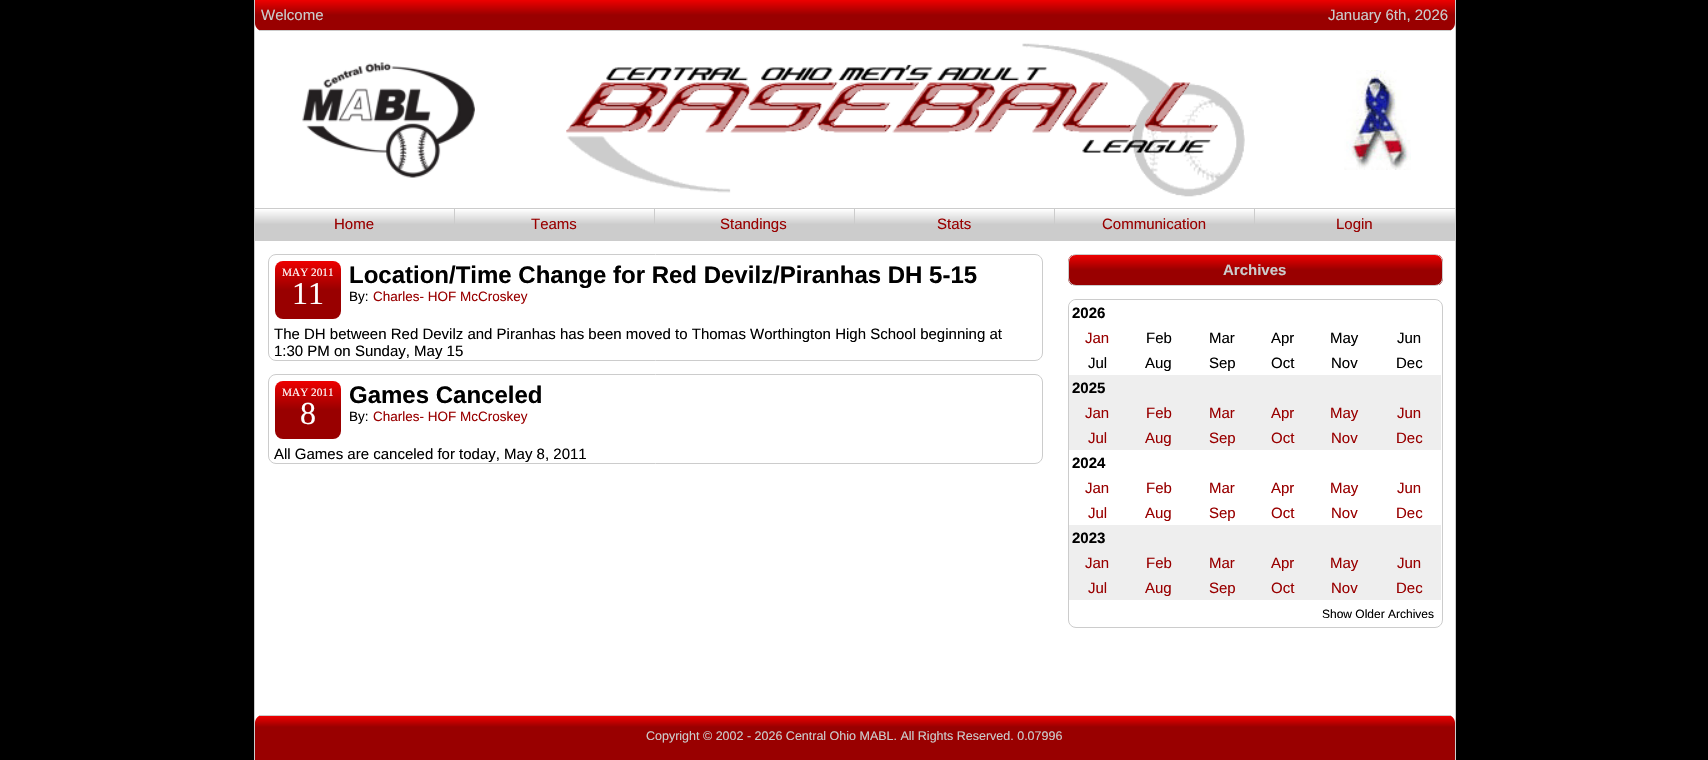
void draw(SkCanvas* canvas) {
	SkPaint paint;
	paint.setAntiAlias(true);
	auto svgPath = [&](const char* data, bool evenOdd = false) {
		SkPath result = *SkParsePath::FromSVGString(data);
		if (evenOdd) result.setFillType(SkPathFillType::kEvenOdd);
		return result;
	};
	canvas->clear(0xff000000);
	paint.setColor(0xffffffff);
	canvas->drawRect(SkRect::MakeXYWH(255, 23, 1200, 700), paint);
	paint.setColor(0xffcccccc);
	canvas->drawRect(SkRect::MakeXYWH(1455, 0, 1, 760), paint);
	canvas->drawRect(SkRect::MakeXYWH(254, 0, 1, 760), paint);
	canvas->save();
	canvas->clipPath(svgPath("M255 0H1455V23C1455 27.5 1451.5 31 1447 31H263C258.5 31 255 27.5 255 23Z"), true);
	{
		const SkColor colors[] = {0xffee0000, 0xff990000};
		const float stops[] = {0, 0.5};
		const SkPoint ends[] = {{855, 0}, {855, 30}};
		paint.setShader(SkGradientShader::MakeLinear(ends, colors, stops, 2, SkTileMode::kClamp));
		paint.setAlpha(255);
	}
	canvas->drawRect(SkRect::MakeXYWH(255, 0, 1200, 30), paint);
	canvas->restore();
	paint.setShader(nullptr);
	paint.setColor(0xffcccccc);
	canvas->drawRect(SkRect::MakeXYWH(259, 30, 1192, 1), paint);
	SkFont f1(fontMgr->matchFamilyStyle("Liberation Sans", SkFontStyle::Normal()), 15);
	f1.setSubpixel(true);
	canvas->drawString("Welcome", 261, 20, f1, paint);
	canvas->drawString("January 6th, 2026", 1328, 20, f1, paint);
	canvas->drawImageRect(SkImages::DeferredFromEncodedData(SkData::MakeFromFileName("img1.png")), SkRect::MakeXYWH(302, 62, 173, 116), SkSamplingOptions());
	canvas->drawImageRect(SkImages::DeferredFromEncodedData(SkData::MakeFromFileName("img2.png")), SkRect::MakeXYWH(566, 43, 679, 154), SkSamplingOptions());
	canvas->drawImageRect(SkImages::DeferredFromEncodedData(SkData::MakeFromFileName("img3.png")), SkRect::MakeXYWH(1344, 70, 67, 100), SkSamplingOptions());
	{
		const SkColor colors[] = {0xffffffff, 0xffcccccc};
		const float stops[] = {0, 0.5};
		const SkPoint ends[] = {{855, 177}, {855, 209}};
		paint.setShader(SkGradientShader::MakeLinear(ends, colors, stops, 2, SkTileMode::kClamp));
		paint.setAlpha(255);
	}
	canvas->drawRect(SkRect::MakeXYWH(255, 208, 1200, 1), paint);
	{
		const SkColor colors[] = {0xffffffff, 0xffcccccc};
		const float stops[] = {0, 0.5};
		const SkPoint ends[] = {{855, 209}, {855, 240}};
		paint.setShader(SkGradientShader::MakeLinear(ends, colors, stops, 2, SkTileMode::kClamp));
		paint.setAlpha(255);
	}
	canvas->drawRect(SkRect::MakeXYWH(255, 210, 1200, 30), paint);
	paint.setShader(nullptr);
	paint.setColor(0xffcccccc);
	canvas->drawRect(SkRect::MakeXYWH(255, 240, 1200, 1), paint);
	canvas->drawRect(SkRect::MakeXYWH(454, 209, 1, 15), paint);
	paint.setColor(0xff990000);
	canvas->drawString("Home", 334, 229, f1, paint);
	paint.setColor(0xffcccccc);
	canvas->drawRect(SkRect::MakeXYWH(654, 209, 1, 15), paint);
	paint.setColor(0xff990000);
	canvas->drawString("Teams", 531, 229, f1, paint);
	paint.setColor(0xffcccccc);
	canvas->drawRect(SkRect::MakeXYWH(854, 209, 1, 15), paint);
	paint.setColor(0xff990000);
	canvas->drawString("Standings", 720, 229, f1, paint);
	paint.setColor(0xffcccccc);
	canvas->drawRect(SkRect::MakeXYWH(1054, 209, 1, 15), paint);
	paint.setColor(0xff990000);
	canvas->drawString("Stats", 937, 229, f1, paint);
	paint.setColor(0xffcccccc);
	canvas->drawRect(SkRect::MakeXYWH(1254, 209, 1, 15), paint);
	paint.setColor(0xff990000);
	canvas->drawString("Communication", 1102, 229, f1, paint);
	canvas->drawString("Login", 1336, 229, f1, paint);
	paint.setStroke(true);
	paint.setStrokeWidth(1);
	paint.setColor(0xffcccccc);
	canvas->drawRoundRect(SkRect::MakeXYWH(268.5, 254.5, 774, 106), 7.5, 7.5, paint);
	paint.setStroke(false);
	{
		const SkColor colors[] = {0xffee0000, 0xff990000};
		const float stops[] = {0, 0.5};
		const SkPoint ends[] = {{308, 261}, {308, 319}};
		paint.setShader(SkGradientShader::MakeLinear(ends, colors, stops, 2, SkTileMode::kClamp));
		paint.setAlpha(255);
	}
	canvas->drawRoundRect(SkRect::MakeXYWH(275, 261, 66, 58), 8, 8, paint);
	SkFont f2(fontMgr->matchFamilyStyle("Liberation Serif", SkFontStyle::Normal()), 11.25);
	f2.setSubpixel(true);
	paint.setShader(nullptr);
	paint.setColor(0xffffffff);
	canvas->drawString("MAY 2011", 282, 276, f2, paint);
	SkFont f3(fontMgr->matchFamilyStyle("Liberation Serif", SkFontStyle::Normal()), 32);
	f3.setSubpixel(true);
	canvas->drawString("11", 292, 304, f3, paint);
	SkFont f4(fontMgr->matchFamilyStyle("Liberation Sans", SkFontStyle::Bold()), 24);
	f4.setSubpixel(true);
	paint.setColor(0xff000000);
	canvas->drawString("Location/Time Change for Red Devilz/Piranhas DH 5-15", 349, 283, f4, paint);
	SkFont f5(fontMgr->matchFamilyStyle("Liberation Sans", SkFontStyle::Normal()), 13.5);
	f5.setSubpixel(true);
	canvas->drawString("By:", 349, 301, f5, paint);
	paint.setColor(0xff990000);
	canvas->drawString("Charles- HOF McCroskey", 373, 301, f5, paint);
	paint.setColor(0xff000000);
	canvas->drawString("The DH between Red Devilz and Piranhas has been moved to Thomas Worthington High School beginning at", 274, 339, f1, paint);
	canvas->drawString("1:30 PM on Sunday, May 15", 274, 356, f1, paint);
	paint.setStroke(true);
	paint.setColor(0xffcccccc);
	canvas->drawRoundRect(SkRect::MakeXYWH(268.5, 374.5, 774, 89), 7.5, 7.5, paint);
	paint.setStroke(false);
	{
		const SkColor colors[] = {0xffee0000, 0xff990000};
		const float stops[] = {0, 0.5};
		const SkPoint ends[] = {{308, 381}, {308, 439}};
		paint.setShader(SkGradientShader::MakeLinear(ends, colors, stops, 2, SkTileMode::kClamp));
		paint.setAlpha(255);
	}
	canvas->drawRoundRect(SkRect::MakeXYWH(275, 381, 66, 58), 8, 8, paint);
	paint.setShader(nullptr);
	paint.setColor(0xffffffff);
	canvas->drawString("MAY 2011", 282, 396, f2, paint);
	canvas->drawString("8", 300, 424, f3, paint);
	paint.setColor(0xff000000);
	canvas->drawString("Games Canceled", 349, 403, f4, paint);
	canvas->drawString("By:", 349, 421, f5, paint);
	paint.setColor(0xff990000);
	canvas->drawString("Charles- HOF McCroskey", 373, 421, f5, paint);
	paint.setColor(0xff000000);
	canvas->drawString("All Games are canceled for today, May 8, 2011", 274, 459, f1, paint);
	canvas->save();
	canvas->clipPath(svgPath("M1076 254H1435C1439.5 254 1443 257.5 1443 262V278C1443 282.5 1439.5 286 1435 286H1076C1071.5 286 1068 282.5 1068 278V262C1068 257.5 1071.5 254 1076 254Z"), true);
	{
		const SkColor colors[] = {0xffee0000, 0xff990000};
		const float stops[] = {0, 0.5};
		const SkPoint ends[] = {{1255, 255}, {1255, 285}};
		paint.setShader(SkGradientShader::MakeLinear(ends, colors, stops, 2, SkTileMode::kClamp));
		paint.setAlpha(255);
	}
	canvas->drawRect(SkRect::MakeXYWH(1068, 255, 375, 30), paint);
	canvas->restore();
	paint.setStroke(true);
	paint.setShader(nullptr);
	paint.setColor(0xffcccccc);
	canvas->drawRoundRect(SkRect::MakeXYWH(1068.5, 254.5, 374, 31), 7.5, 7.5, paint);
	SkFont f6(fontMgr->matchFamilyStyle("Liberation Sans", SkFontStyle::Bold()), 15);
	f6.setSubpixel(true);
	paint.setStroke(false);
	canvas->drawString("Archives", 1223, 275, f6, paint);
	paint.setStroke(true);
	canvas->drawRoundRect(SkRect::MakeXYWH(1068.5, 299.5, 374, 328), 7.5, 7.5, paint);
	paint.setStroke(false);
	paint.setColor(0xffffffff);
	canvas->drawPath(svgPath("M1077 300H1433C1437.5 300 1441 303.5 1441 308V375H1069V308C1069 303.5 1072.5 300 1077 300Z"), paint);
	paint.setColor(0xff000000);
	canvas->drawString("2026", 1072, 318, f6, paint);
	paint.setColor(0xff990000);
	canvas->drawString("Jan", 1085, 343, f1, paint);
	paint.setColor(0xff000000);
	canvas->drawString("Feb", 1146, 343, f1, paint);
	canvas->drawString("Mar", 1209, 343, f1, paint);
	canvas->drawString("Apr", 1271, 343, f1, paint);
	canvas->drawString("May", 1330, 343, f1, paint);
	canvas->drawString("Jun", 1397, 343, f1, paint);
	canvas->drawString("Jul", 1088, 368, f1, paint);
	canvas->drawString("Aug", 1145, 368, f1, paint);
	canvas->drawString("Sep", 1209, 368, f1, paint);
	canvas->drawString("Oct", 1271, 368, f1, paint);
	canvas->drawString("Nov", 1331, 368, f1, paint);
	canvas->drawString("Dec", 1396, 368, f1, paint);
	paint.setColor(0xffeeeeee);
	canvas->drawRect(SkRect::MakeXYWH(1069, 375, 372, 75), paint);
	paint.setColor(0xff000000);
	canvas->drawString("2025", 1072, 393, f6, paint);
	paint.setColor(0xff990000);
	canvas->drawString("Jan", 1085, 418, f1, paint);
	canvas->drawString("Feb", 1146, 418, f1, paint);
	canvas->drawString("Mar", 1209, 418, f1, paint);
	canvas->drawString("Apr", 1271, 418, f1, paint);
	canvas->drawString("May", 1330, 418, f1, paint);
	canvas->drawString("Jun", 1397, 418, f1, paint);
	canvas->drawString("Jul", 1088, 443, f1, paint);
	canvas->drawString("Aug", 1145, 443, f1, paint);
	canvas->drawString("Sep", 1209, 443, f1, paint);
	canvas->drawString("Oct", 1271, 443, f1, paint);
	canvas->drawString("Nov", 1331, 443, f1, paint);
	canvas->drawString("Dec", 1396, 443, f1, paint);
	paint.setColor(0xff000000);
	canvas->drawString("2024", 1072, 468, f6, paint);
	paint.setColor(0xff990000);
	canvas->drawString("Jan", 1085, 493, f1, paint);
	canvas->drawString("Feb", 1146, 493, f1, paint);
	canvas->drawString("Mar", 1209, 493, f1, paint);
	canvas->drawString("Apr", 1271, 493, f1, paint);
	canvas->drawString("May", 1330, 493, f1, paint);
	canvas->drawString("Jun", 1397, 493, f1, paint);
	canvas->drawString("Jul", 1088, 518, f1, paint);
	canvas->drawString("Aug", 1145, 518, f1, paint);
	canvas->drawString("Sep", 1209, 518, f1, paint);
	canvas->drawString("Oct", 1271, 518, f1, paint);
	canvas->drawString("Nov", 1331, 518, f1, paint);
	canvas->drawString("Dec", 1396, 518, f1, paint);
	paint.setColor(0xffeeeeee);
	canvas->drawRect(SkRect::MakeXYWH(1069, 525, 372, 75), paint);
	paint.setColor(0xff000000);
	canvas->drawString("2023", 1072, 543, f6, paint);
	paint.setColor(0xff990000);
	canvas->drawString("Jan", 1085, 568, f1, paint);
	canvas->drawString("Feb", 1146, 568, f1, paint);
	canvas->drawString("Mar", 1209, 568, f1, paint);
	canvas->drawString("Apr", 1271, 568, f1, paint);
	canvas->drawString("May", 1330, 568, f1, paint);
	canvas->drawString("Jun", 1397, 568, f1, paint);
	canvas->drawString("Jul", 1088, 593, f1, paint);
	canvas->drawString("Aug", 1145, 593, f1, paint);
	canvas->drawString("Sep", 1209, 593, f1, paint);
	canvas->drawString("Oct", 1271, 593, f1, paint);
	canvas->drawString("Nov", 1331, 593, f1, paint);
	canvas->drawString("Dec", 1396, 593, f1, paint);
	SkFont f7(fontMgr->matchFamilyStyle("Liberation Sans", SkFontStyle::Normal()), 12);
	f7.setSubpixel(true);
	paint.setColor(0xff000000);
	canvas->drawString("Show Older Archives", 1322, 618, f7, paint);
	canvas->save();
	canvas->clipPath(svgPath("M263 715H1447C1451.5 715 1455 718.5 1455 723V760H255V723C255 718.5 258.5 715 263 715Z"), true);
	{
		const SkColor colors[] = {0xffee0000, 0xff990000};
		const float stops[] = {0, 0.25};
		const SkPoint ends[] = {{855, 716}, {855, 760}};
		paint.setShader(SkGradientShader::MakeLinear(ends, colors, stops, 2, SkTileMode::kClamp));
		paint.setAlpha(255);
	}
	canvas->drawRect(SkRect::MakeXYWH(255, 716, 1200, 44), paint);
	canvas->restore();
	paint.setShader(nullptr);
	paint.setColor(0xffcccccc);
	canvas->drawRect(SkRect::MakeXYWH(259, 715, 1192, 1), paint);
	SkFont f8(fontMgr->matchFamilyStyle("Liberation Sans", SkFontStyle::Normal()), 12.5);
	f8.setSubpixel(true);
	canvas->drawString("Copyright © 2002 - 2026 Central Ohio MABL. All Rights Reserved. 0.07996", 646, 740, f8, paint);
}
